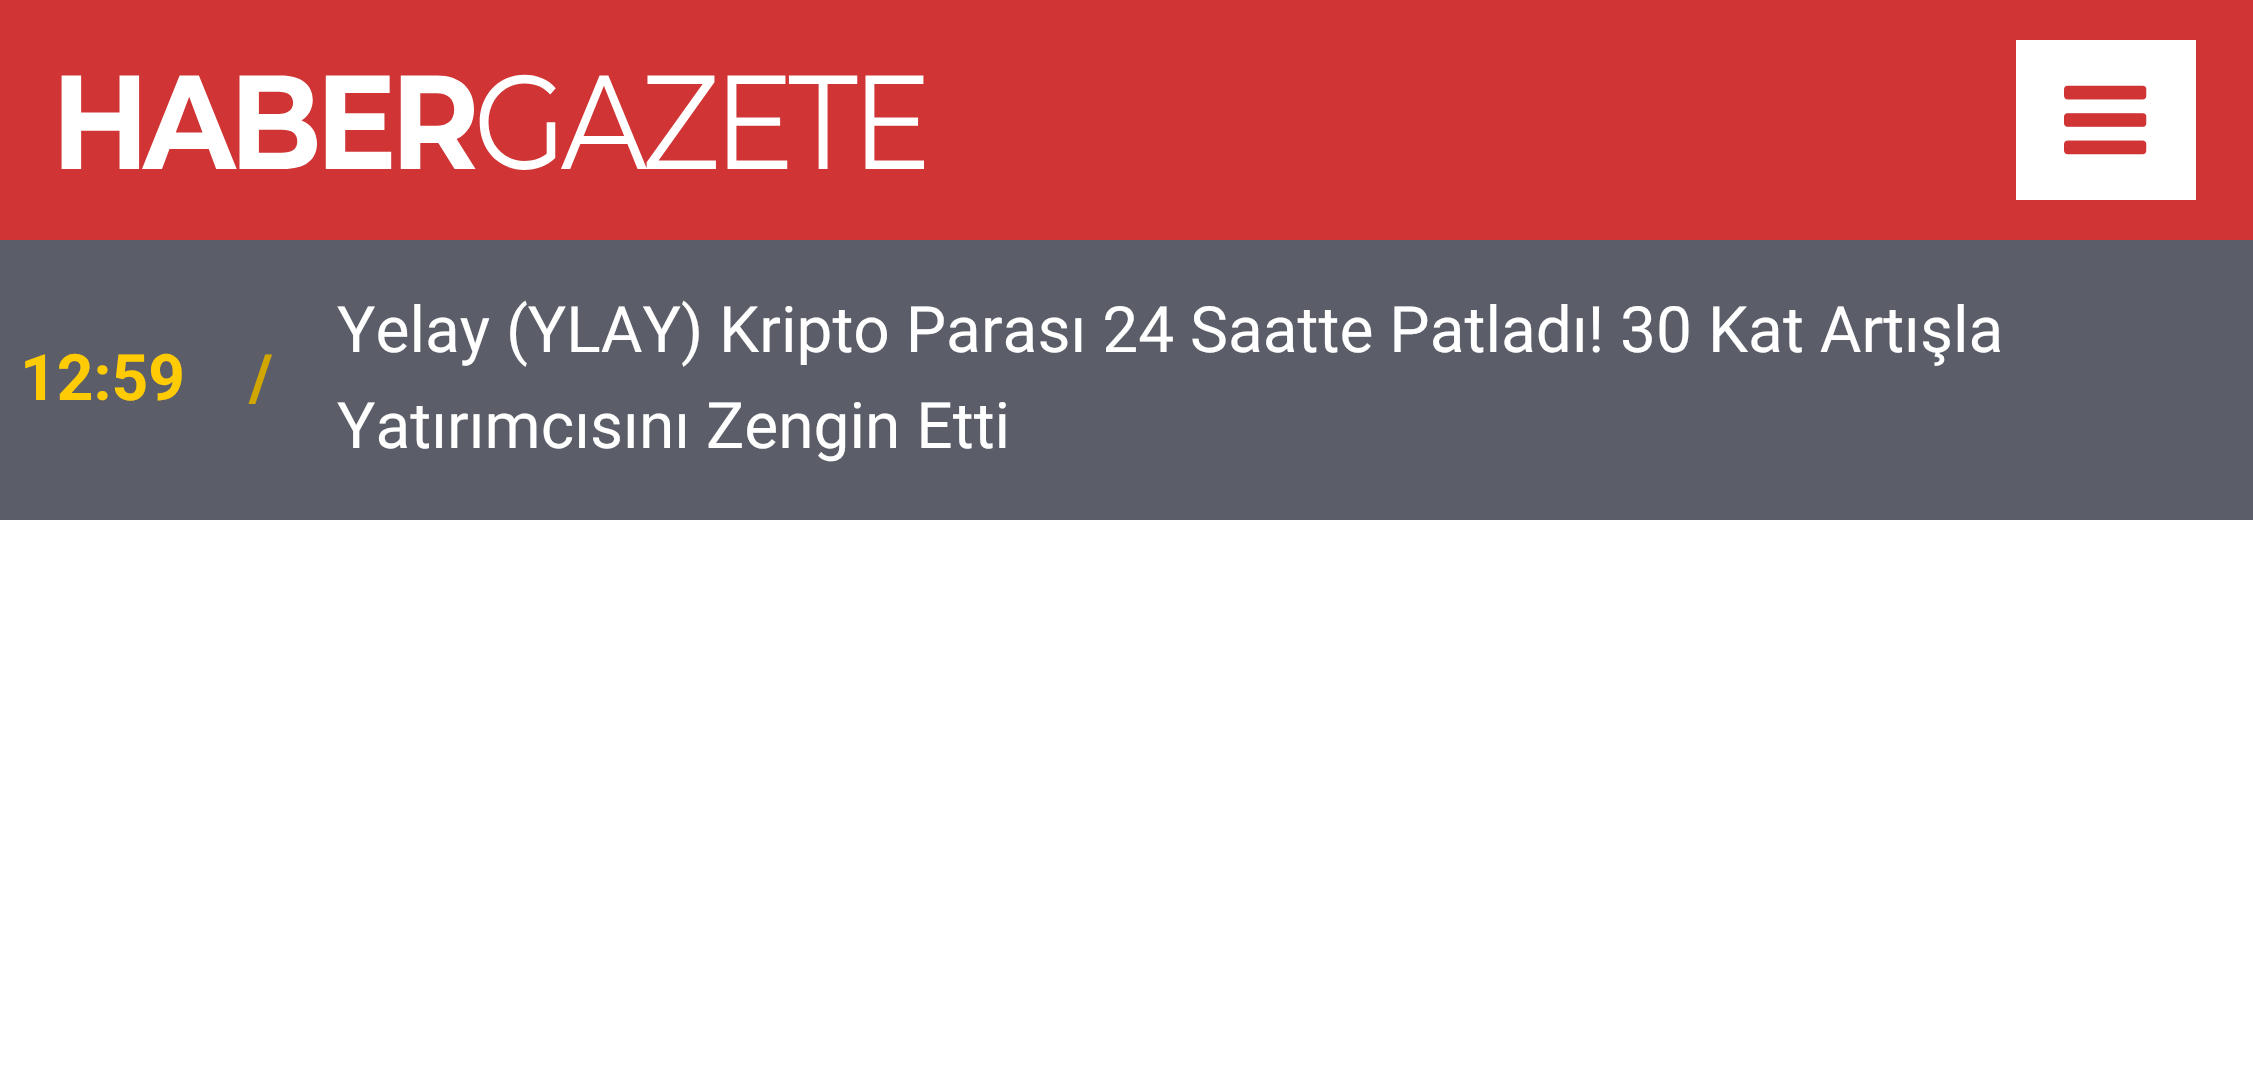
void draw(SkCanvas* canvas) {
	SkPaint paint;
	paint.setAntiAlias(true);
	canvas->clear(0xffffffff);
	paint.setColor(0xffd03434);
	canvas->drawRect(SkRect::MakeXYWH(0, 0, 2253, 240), paint);
	canvas->drawImageRect(SkImages::DeferredFromEncodedData(SkData::MakeFromFileName("img1.png")), SkRect::MakeXYWH(61, 74, 863, 96), SkSamplingOptions());
	paint.setColor(0xffffffff);
	canvas->drawRect(SkRect::MakeXYWH(2016, 40, 180, 160), paint);
	canvas->drawImageRect(SkImages::DeferredFromEncodedData(SkData::MakeFromFileName("img2.png")), SkRect::MakeXYWH(2064, 85, 83, 70), SkSamplingOptions());
	paint.setColor(0xff5b5e68);
	canvas->drawRect(SkRect::MakeXYWH(0, 240, 2253, 280), paint);
	SkFont f1(fontMgr->matchFamilyStyle("Roboto", SkFontStyle::Bold()), 64);
	f1.setSubpixel(true);
	paint.setColor(0xffffcb05);
	canvas->drawString("12:59", 20, 400, f1, paint);
	paint.setColor(0xffd1a600);
	canvas->drawString("/", 249, 400, f1, paint);
	SkFont f2(fontMgr->matchFamilyStyle("Roboto", SkFontStyle::Normal()), 64);
	f2.setSubpixel(true);
	paint.setColor(0xffffffff);
	canvas->drawString("Yelay (YLAY) Kripto Parası 24 Saatte Patladı! 30 Kat Artışla", 337, 352, f2, paint);
	canvas->drawString("Yatırımcısını Zengin Etti", 337, 448, f2, paint);
}
